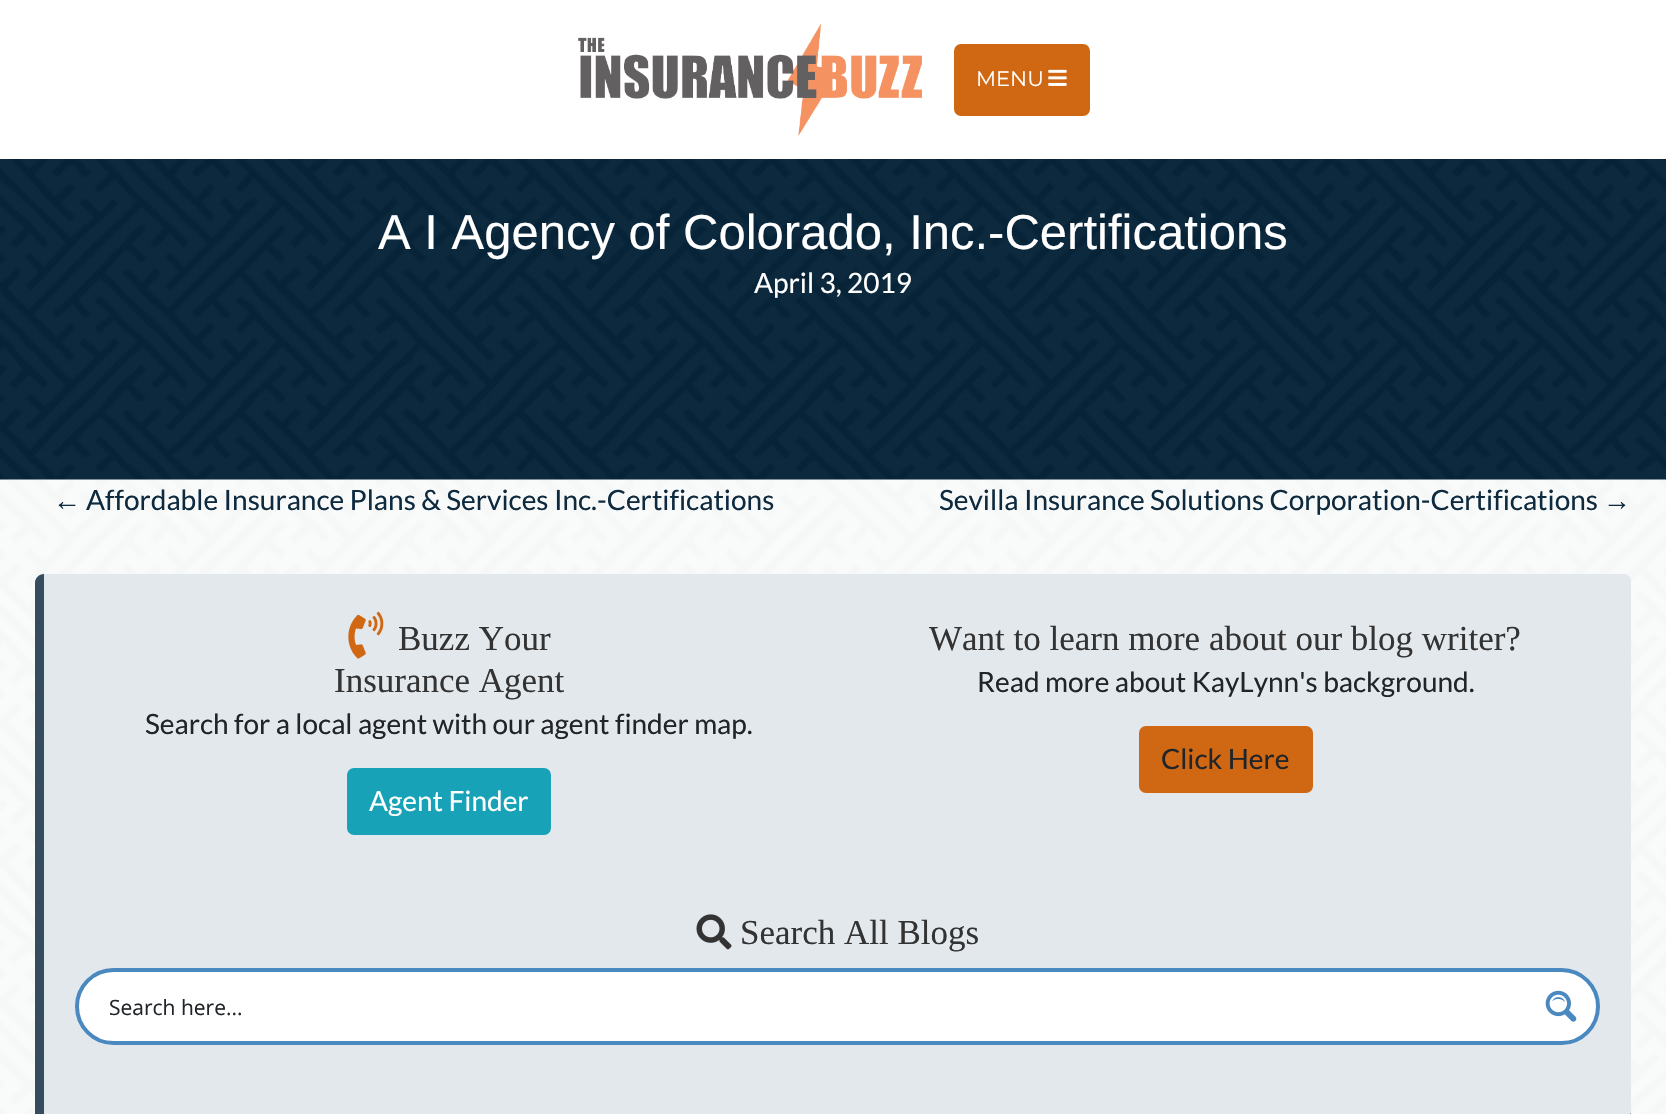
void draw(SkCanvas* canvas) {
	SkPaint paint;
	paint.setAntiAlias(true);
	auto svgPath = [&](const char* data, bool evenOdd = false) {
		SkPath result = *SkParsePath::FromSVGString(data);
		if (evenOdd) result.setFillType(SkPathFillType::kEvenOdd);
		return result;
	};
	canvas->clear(0xffffffff);
	canvas->drawImageRect(SkImages::DeferredFromEncodedData(SkData::MakeFromFileName("img1.png")), SkRect::MakeXYWH(578, 23, 344, 114), SkSamplingOptions());
	paint.setColor(0xffcf6713);
	canvas->drawRoundRect(SkRect::MakeXYWH(954, 44, 136, 72), 7, 7, paint);
	SkFont f1(fontMgr->matchFamilyStyle("Montserrat", SkFontStyle::Normal()), 21);
	f1.setSubpixel(true);
	paint.setColor(0xffffffff);
	canvas->drawString("MENU", 976, 86, f1, paint);
	canvas->drawImageRect(SkImages::DeferredFromEncodedData(SkData::MakeFromFileName("img2.png")), SkRect::MakeXYWH(1048, 69, 19, 17), SkSamplingOptions());
	canvas->drawImageRect(SkImages::DeferredFromEncodedData(SkData::MakeFromFileName("img3.png")), SkRect::MakeXYWH(0, 159, 1666, 321), SkSamplingOptions());
	SkFont f2(fontMgr->matchFamilyStyle("Liberation Sans", SkFontStyle::Normal()), 49);
	f2.setSubpixel(true);
	canvas->drawString("A I Agency of Colorado, Inc.-Certifications", 378, 249, f2, paint);
	SkFont f3(fontMgr->matchFamilyStyle("Lato", SkFontStyle::Normal()), 28);
	f3.setSubpixel(true);
	canvas->drawString("April 3, 2019", 754, 293, f3, paint);
	canvas->drawImageRect(SkImages::DeferredFromEncodedData(SkData::MakeFromFileName("img4.png")), SkRect::MakeXYWH(0, 479, 1666, 635), SkSamplingOptions());
	SkFont f4(fontMgr->matchFamilyStyle("Liberation Sans", SkFontStyle::Normal()), 28);
	f4.setSubpixel(true);
	paint.setColor(0xff0e2a3f);
	canvas->drawString("←", 53, 510, f4, paint);
	canvas->drawString("Affordable Insurance Plans & Services Inc.-Certifications", 86, 510, f3, paint);
	canvas->drawString("Sevilla Insurance Solutions Corporation-Certifications", 939, 510, f3, paint);
	canvas->drawString("→", 1603, 510, f4, paint);
	paint.setColor(0xffe3e8ed);
	canvas->drawPath(svgPath("M44 574H1624C1628 574 1631 577 1631 581V1113C1631 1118 1627 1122 1622 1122H42C38 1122 35 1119 35 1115V583C35 578 39 574 44 574Z"), paint);
	paint.setColor(0xcc082439);
	canvas->drawPath(svgPath("M44 574H1624C1628 574 1631 577 1631 581V1113C1631 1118 1627 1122 1622 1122H42C38 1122 35 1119 35 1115V583C35 578 39 574 44 574ZM44 574H1624C1628 574 1631 577 1631 581V1113C1631 1114 1627 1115 1622 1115H44Z", true), paint);
	canvas->drawImageRect(SkImages::DeferredFromEncodedData(SkData::MakeFromFileName("img5.png")), SkRect::MakeXYWH(348, 611, 36, 48), SkSamplingOptions());
	SkFont f5(fontMgr->matchFamilyStyle("Liberation Serif", SkFontStyle::Normal()), 35);
	f5.setSubpixel(true);
	paint.setColor(0xff333333);
	canvas->drawString("Buzz Your", 398, 650, f5, paint);
	canvas->drawString("Insurance Agent", 334, 692, f5, paint);
	paint.setColor(0xff212529);
	canvas->drawString("Search for a local agent with our agent finder map.", 145, 734, f3, paint);
	paint.setColor(0xff17a2b8);
	canvas->drawRoundRect(SkRect::MakeXYWH(348, 769, 202, 65), 6, 6, paint);
	paint.setStroke(true);
	paint.setStrokeWidth(2);
	canvas->drawRoundRect(SkRect::MakeXYWH(348, 769, 202, 65), 6, 6, paint);
	paint.setStroke(false);
	paint.setColor(0xffffffff);
	canvas->drawString("Agent Finder", 369, 811, f3, paint);
	paint.setColor(0xff333333);
	canvas->drawString("Want to learn more about our blog writer?", 929, 650, f5, paint);
	paint.setColor(0xff212529);
	canvas->drawString("Read more about KayLynn's background.", 977, 692, f3, paint);
	paint.setColor(0xffcf6713);
	canvas->drawRoundRect(SkRect::MakeXYWH(1139, 726, 174, 67), 7, 7, paint);
	paint.setColor(0xff212529);
	canvas->drawString("Click Here", 1161, 769, f3, paint);
	canvas->drawImageRect(SkImages::DeferredFromEncodedData(SkData::MakeFromFileName("img6.png")), SkRect::MakeXYWH(696, 914, 36, 36), SkSamplingOptions());
	paint.setColor(0xff333333);
	canvas->drawString("Search All Blogs", 740, 944, f5, paint);
	paint.setColor(0xffffffff);
	canvas->drawRoundRect(SkRect::MakeXYWH(77, 970, 1521, 73), 36.5, 36.5, paint);
	paint.setStroke(true);
	paint.setStrokeWidth(4);
	paint.setColor(0xff4a89bf);
	canvas->drawRoundRect(SkRect::MakeXYWH(77, 970, 1521, 73), 36.5, 36.5, paint);
	paint.setStroke(false);
	paint.setColor(0xffffffff);
	canvas->drawRect(SkRect::MakeXYWH(89, 982, 1497, 49), paint);
	SkFont f6(fontMgr->matchFamilyStyle("Open Sans", SkFontStyle::Normal()), 21);
	f6.setSubpixel(true);
	paint.setColor(0xff212529);
	canvas->drawString("Search here...", 109, 1015, f6, paint);
	canvas->drawImageRect(SkImages::DeferredFromEncodedData(SkData::MakeFromFileName("img7.png")), SkRect::MakeXYWH(1545, 990, 32, 32), SkSamplingOptions());
}
